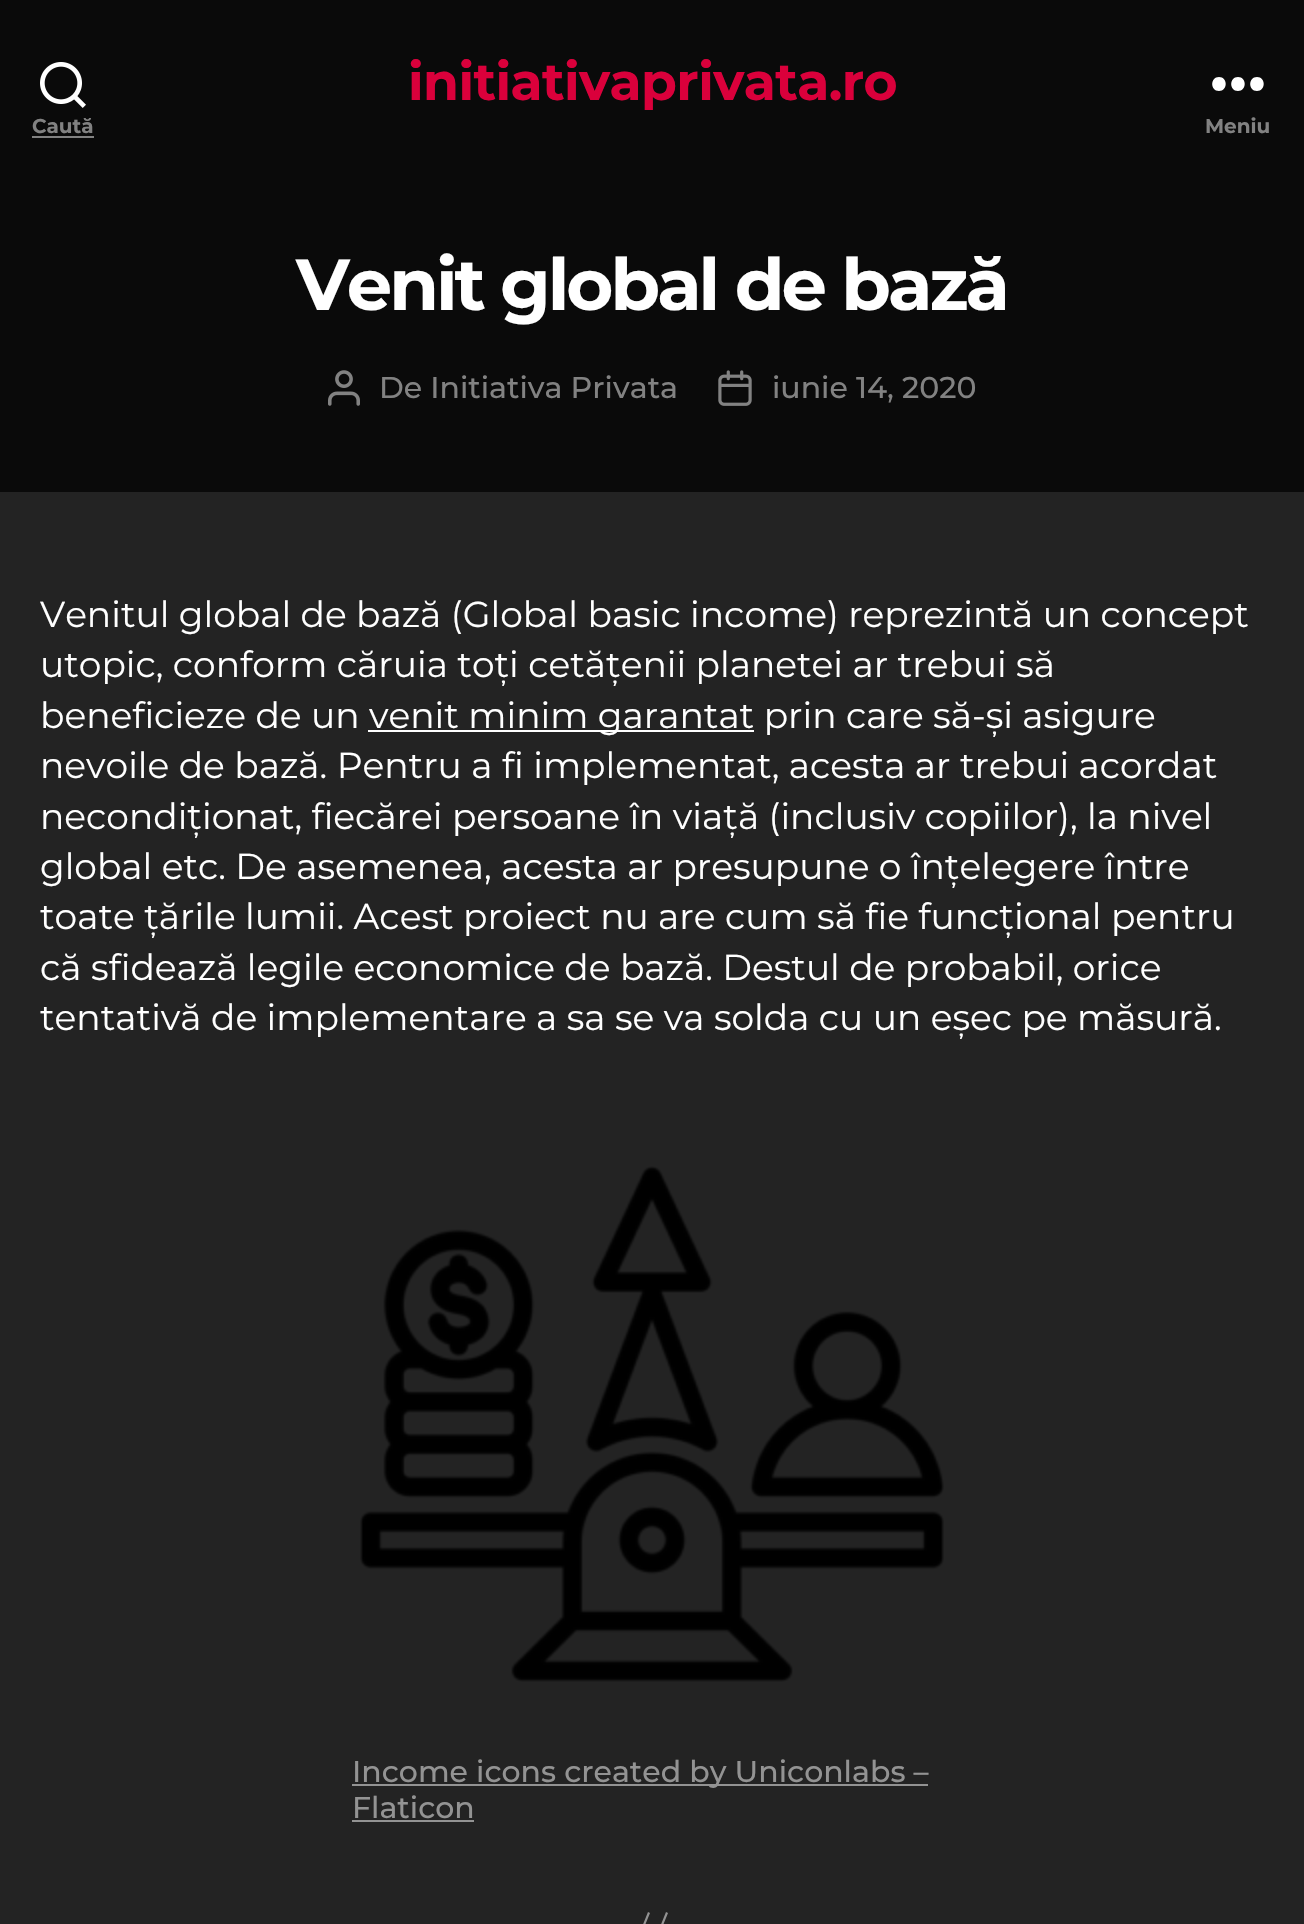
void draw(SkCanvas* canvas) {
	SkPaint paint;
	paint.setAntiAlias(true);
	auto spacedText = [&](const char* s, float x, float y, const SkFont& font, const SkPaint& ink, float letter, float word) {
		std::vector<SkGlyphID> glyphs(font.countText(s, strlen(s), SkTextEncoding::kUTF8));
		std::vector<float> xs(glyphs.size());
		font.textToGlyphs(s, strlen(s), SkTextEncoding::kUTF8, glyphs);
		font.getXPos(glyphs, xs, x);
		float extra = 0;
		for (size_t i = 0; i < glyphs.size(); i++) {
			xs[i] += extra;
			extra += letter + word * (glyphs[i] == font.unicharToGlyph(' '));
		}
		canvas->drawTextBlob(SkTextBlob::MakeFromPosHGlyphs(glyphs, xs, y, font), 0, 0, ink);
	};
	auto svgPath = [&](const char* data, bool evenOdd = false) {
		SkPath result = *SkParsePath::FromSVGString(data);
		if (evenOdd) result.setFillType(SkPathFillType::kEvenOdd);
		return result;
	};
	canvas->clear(0xff232323);
	paint.setColor(0xff0a0a0a);
	canvas->drawRect(SkRect::MakeXYWH(0, 0, 1304, 492), paint);
	SkFont f1(fontMgr->matchFamilyStyle("Montserrat", SkFontStyle::Bold()), 52);
	f1.setSubpixel(true);
	paint.setColor(0xffda003b);
	spacedText("initiativaprivata.ro", 408, 100, f1, paint, -0.6, 0);
	canvas->drawImageRect(SkImages::DeferredFromEncodedData(SkData::MakeFromFileName("img1.png")), SkRect::MakeXYWH(40, 62, 46, 46), SkSamplingOptions());
	SkFont f2(fontMgr->matchFamilyStyle("Montserrat", SkFontStyle::Bold()), 20);
	f2.setSubpixel(true);
	paint.setColor(0xff828282);
	canvas->drawString("Caută", 32, 133, f2, paint);
	canvas->drawRect(SkRect::MakeXYWH(32, 136, 62, 2), paint);
	paint.setColor(0xffffffff);
	canvas->drawPath(svgPath("M1219 91C1210 91 1210 77 1219 77C1228 77 1228 91 1219 91ZM1238 91C1229 91 1229 77 1238 77C1247 77 1247 91 1238 91ZM1257 91C1248 91 1248 77 1257 77C1266 77 1266 91 1257 91Z", true), paint);
	paint.setColor(0xff828282);
	canvas->drawString("Meniu", 1205, 133, f2, paint);
	SkFont f3(fontMgr->matchFamilyStyle("Montserrat", SkFontStyle::Bold()), 72);
	f3.setSubpixel(true);
	paint.setColor(0xffffffff);
	spacedText("Venit global de bază", 296, 310, f3, paint, -3, 0);
	canvas->drawImageRect(SkImages::DeferredFromEncodedData(SkData::MakeFromFileName("img2.png")), SkRect::MakeXYWH(328, 370, 32, 36), SkSamplingOptions());
	SkFont f4(fontMgr->matchFamilyStyle("Montserrat", SkFontStyle(500, SkFontStyle::kNormal_Width, SkFontStyle::kUpright_Slant)), 30);
	f4.setSubpixel(true);
	paint.setColor(0xff828282);
	canvas->drawString("De Initiativa Privata", 379, 398, f4, paint);
	canvas->drawImageRect(SkImages::DeferredFromEncodedData(SkData::MakeFromFileName("img3.png")), SkRect::MakeXYWH(718, 370, 34, 36), SkSamplingOptions());
	canvas->drawString("iunie 14, 2020", 772, 398, f4, paint);
	SkFont f5(fontMgr->matchFamilyStyle("Montserrat", SkFontStyle::Normal()), 36);
	f5.setSubpixel(true);
	paint.setColor(0xffffffff);
	canvas->drawString("Venitul global de bază (Global basic income) reprezintă un concept", 40, 627, f5, paint);
	canvas->drawString("utopic, conform căruia toți cetățenii planetei ar trebui să", 40, 677, f5, paint);
	canvas->drawString("beneficieze de un", 40, 728, f5, paint);
	canvas->drawRect(SkRect::MakeXYWH(368, 730, 386, 2), paint);
	canvas->drawString("venit minim garantat prin care să-și asigure", 369, 728, f5, paint);
	canvas->drawString("nevoile de bază. Pentru a fi implementat, acesta ar trebui acordat", 40, 778, f5, paint);
	canvas->drawString("necondiționat, fiecărei persoane în viață (inclusiv copiilor), la nivel", 40, 829, f5, paint);
	canvas->drawString("global etc. De asemenea, acesta ar presupune o înțelegere între", 40, 879, f5, paint);
	canvas->drawString("toate țările lumii. Acest proiect nu are cum să fie funcțional pentru", 40, 929, f5, paint);
	canvas->drawString("că sfidează legile economice de bază. Destul de probabil, orice", 40, 980, f5, paint);
	canvas->drawString("tentativă de implementare a sa se va solda cu un eșec pe măsură.", 40, 1030, f5, paint);
	canvas->drawImageRect(SkImages::DeferredFromEncodedData(SkData::MakeFromFileName("img4.png")), SkRect::MakeXYWH(360, 1166, 584, 516), SkSamplingOptions());
	paint.setColor(0xff939393);
	canvas->drawRect(SkRect::MakeXYWH(352, 1784, 576, 2), paint);
	canvas->drawString("Income icons created by Uniconlabs –", 352, 1782, f4, paint);
	canvas->drawString("Flaticon", 352, 1818, f4, paint);
	canvas->drawRect(SkRect::MakeXYWH(352, 1820, 122, 2), paint);
	canvas->drawPath(svgPath("M648 1912L650 1913L638 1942.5L636 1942ZM666 1912L668 1913L656 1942.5L654 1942Z"), paint);
}
